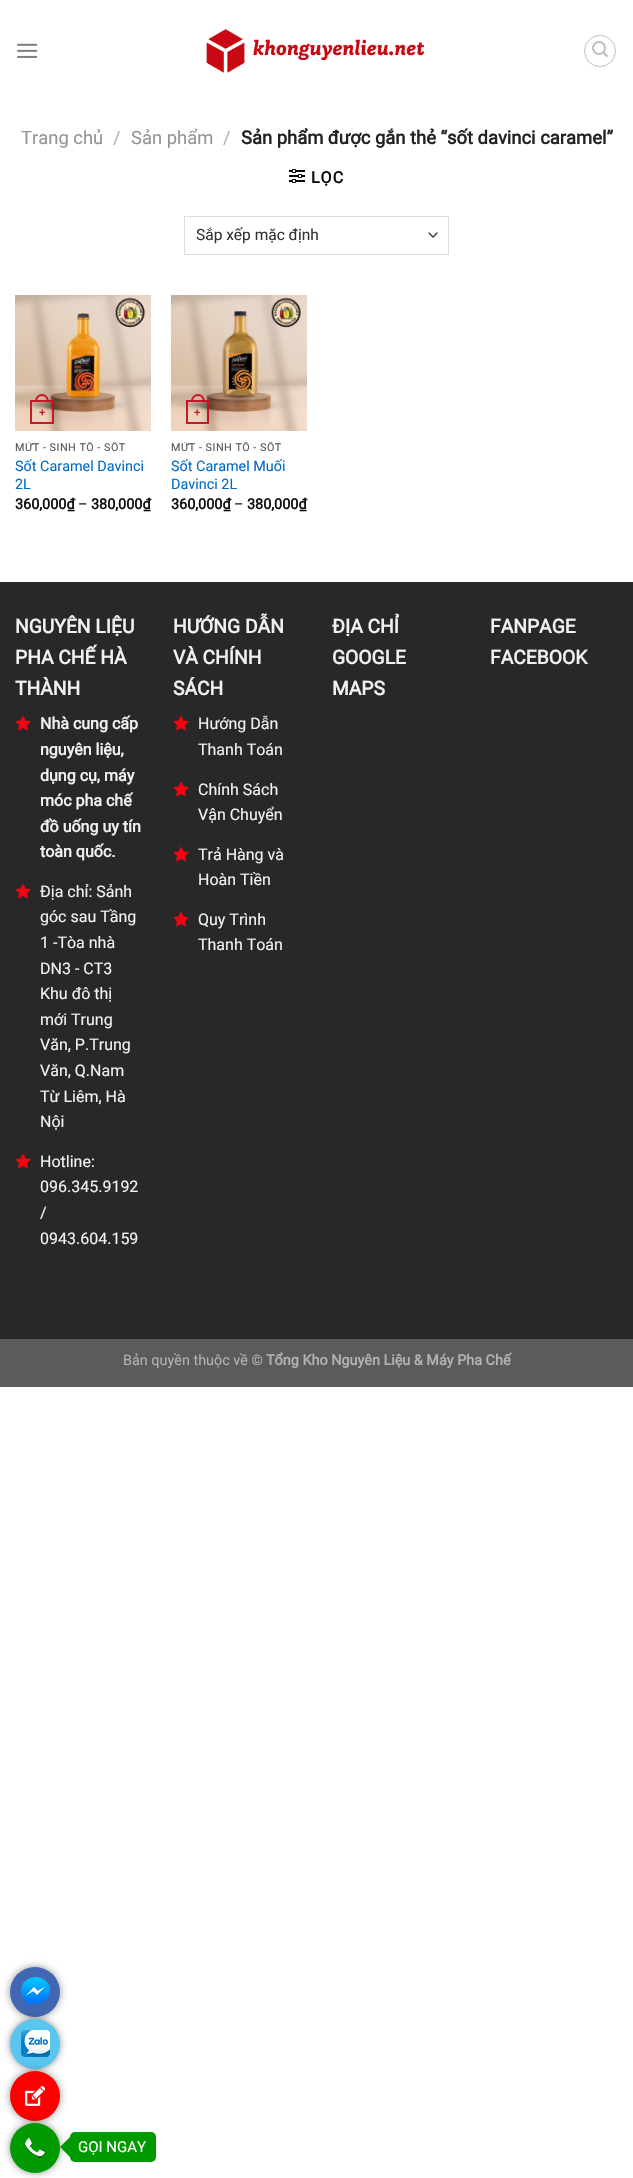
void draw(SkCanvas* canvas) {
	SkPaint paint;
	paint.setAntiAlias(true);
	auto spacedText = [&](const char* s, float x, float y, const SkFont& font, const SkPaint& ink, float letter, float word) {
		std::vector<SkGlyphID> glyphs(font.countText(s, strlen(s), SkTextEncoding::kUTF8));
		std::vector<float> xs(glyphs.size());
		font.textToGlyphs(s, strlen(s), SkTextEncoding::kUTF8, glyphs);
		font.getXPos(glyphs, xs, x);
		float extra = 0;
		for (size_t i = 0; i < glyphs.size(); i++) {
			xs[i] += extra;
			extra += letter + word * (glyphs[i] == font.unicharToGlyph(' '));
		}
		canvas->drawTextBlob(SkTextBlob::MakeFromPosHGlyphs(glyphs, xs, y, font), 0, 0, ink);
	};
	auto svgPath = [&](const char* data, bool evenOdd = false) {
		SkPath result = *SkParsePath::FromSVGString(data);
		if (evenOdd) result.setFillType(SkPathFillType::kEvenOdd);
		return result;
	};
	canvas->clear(0xffffffff);
	canvas->drawImageRect(SkImages::DeferredFromEncodedData(SkData::MakeFromFileName("img1.png")), SkRect::MakeXYWH(17, 43, 21, 15), SkSamplingOptions());
	canvas->drawImageRect(SkImages::DeferredFromEncodedData(SkData::MakeFromFileName("img2.png")), SkRect::MakeXYWH(206, 28, 218, 45), SkSamplingOptions());
	paint.setStroke(true);
	paint.setStrokeWidth(1);
	paint.setColor(0xffc0c0c0);
	canvas->drawCircle(600, 51, 15.5, paint);
	canvas->drawImageRect(SkImages::DeferredFromEncodedData(SkData::MakeFromFileName("img3.png")), SkRect::MakeXYWH(592, 41, 16, 16), SkSamplingOptions());
	SkFont f1(fontMgr->matchFamilyStyle("Roboto", SkFontStyle::Normal()), 18.4);
	f1.setSubpixel(true);
	paint.setStroke(false);
	paint.setColor(0xff949494);
	canvas->drawString("Trang chủ", 21, 144, f1, paint);
	paint.setColor(0xffb2b2b2);
	canvas->drawString("/", 113, 144, f1, paint);
	paint.setColor(0xff949494);
	canvas->drawString("Sản phẩm", 131, 144, f1, paint);
	paint.setColor(0xffb2b2b2);
	canvas->drawString("/", 223, 144, f1, paint);
	SkFont f2(fontMgr->matchFamilyStyle("Roboto", SkFontStyle::Bold()), 18.4);
	f2.setSubpixel(true);
	paint.setColor(0xff222222);
	canvas->drawString("Sản phẩm được gắn thẻ “sốt davinci caramel”", 241, 144, f2, paint);
	canvas->drawImageRect(SkImages::DeferredFromEncodedData(SkData::MakeFromFileName("img4.png")), SkRect::MakeXYWH(289, 169, 16, 14), SkSamplingOptions());
	SkFont f3(fontMgr->matchFamilyStyle("Roboto", SkFontStyle::Bold()), 16);
	f3.setSubpixel(true);
	paint.setColor(0xff0a0a0a);
	spacedText("LỌC", 311, 183, f3, paint, 1, 0);
	paint.setStroke(true);
	paint.setStrokeWidth(1.3);
	paint.setStrokeCap(SkPaint::kRound_Cap);
	paint.setStrokeJoin(SkPaint::kRound_Join);
	paint.setColor(0xff333333);
	canvas->drawPath(svgPath("M429 233L433 237L437 233"), paint);
	paint.setStrokeWidth(1);
	paint.setStrokeCap(SkPaint::kButt_Cap);
	paint.setStrokeJoin(SkPaint::kMiter_Join);
	paint.setColor(0xffdddddd);
	canvas->drawRect(SkRect::MakeXYWH(184.5, 216.5, 264, 38), paint);
	SkFont f4(fontMgr->matchFamilyStyle("Roboto", SkFontStyle::Normal()), 15.5);
	f4.setSubpixel(true);
	paint.setStroke(false);
	paint.setColor(0xff333333);
	canvas->drawString("Sắp xếp mặc định", 196, 240, f4, paint);
	canvas->drawImageRect(SkImages::DeferredFromEncodedData(SkData::MakeFromFileName("img5.png")), SkRect::MakeXYWH(15, 295, 136, 136), SkSamplingOptions());
	paint.setStroke(true);
	paint.setStrokeWidth(2);
	paint.setColor(0xf2c60f1d);
	canvas->drawRect(SkRect::MakeXYWH(31, 401, 22, 22), paint);
	paint.setStroke(false);
	canvas->drawPath(svgPath("M42 394C46.5 394 49 398 49 402H35C35 398 37.5 394 42 394ZM42 396C45.5 396 47 399 47 402H37C37 399 38.5 396 42 396Z", true), paint);
	SkFont f5(fontMgr->matchFamilyStyle("Liberation Sans", SkFontStyle::Bold()), 11);
	f5.setSubpixel(true);
	paint.setColor(0xffc81925);
	canvas->drawString("+", 39, 416, f5, paint);
	canvas->save();
	canvas->clipRect(SkRect::MakeXYWH(15, 442, 136, 13));
	SkFont f6(fontMgr->matchFamilyStyle("Roboto", SkFontStyle::Normal()), 10.75);
	f6.setSubpixel(true);
	paint.setColor(0xff545454);
	spacedText("MỨT - SINH TỐ - SỐT", 15, 451, f6, paint, 0.5, 0);
	canvas->restore();
	SkFont f7(fontMgr->matchFamilyStyle("Roboto", SkFontStyle::Normal()), 14.4);
	f7.setSubpixel(true);
	paint.setColor(0xff046cc7);
	canvas->drawString("Sốt Caramel Davinci", 15, 471, f7, paint);
	canvas->drawString("2L", 15, 489, f7, paint);
	SkFont f8(fontMgr->matchFamilyStyle("Roboto", SkFontStyle::Bold()), 14.4);
	f8.setSubpixel(true);
	paint.setColor(0xff111111);
	canvas->drawString("360,000₫", 15, 509, f8, paint);
	paint.setColor(0xff0a0a0a);
	canvas->drawString("–", 78, 509, f7, paint);
	paint.setColor(0xff111111);
	canvas->drawString("380,000₫", 91, 509, f8, paint);
	canvas->drawImageRect(SkImages::DeferredFromEncodedData(SkData::MakeFromFileName("img6.png")), SkRect::MakeXYWH(171, 295, 136, 136), SkSamplingOptions());
	paint.setStroke(true);
	paint.setColor(0xf2c60f1d);
	canvas->drawRect(SkRect::MakeXYWH(187, 401, 21, 22), paint);
	paint.setStroke(false);
	canvas->drawPath(svgPath("M198 394C202.5 394 205 398 205 402H191C191 398 193.5 394 198 394ZM198 396C201.5 396 203 399 203 402H193C193 399 194.5 396 198 396Z", true), paint);
	paint.setColor(0xffc81925);
	canvas->drawString("+", 194, 416, f5, paint);
	canvas->save();
	canvas->clipRect(SkRect::MakeXYWH(171, 442, 136, 13));
	paint.setColor(0xff545454);
	spacedText("MỨT - SINH TỐ - SỐT", 171, 451, f6, paint, 0.5, 0);
	canvas->restore();
	paint.setColor(0xff046cc7);
	canvas->drawString("Sốt Caramel Muối", 171, 471, f7, paint);
	canvas->drawString("Davinci 2L", 171, 489, f7, paint);
	paint.setColor(0xff111111);
	canvas->drawString("360,000₫", 171, 509, f8, paint);
	paint.setColor(0xff0a0a0a);
	canvas->drawString("–", 234, 509, f7, paint);
	paint.setColor(0xff111111);
	canvas->drawString("380,000₫", 247, 509, f8, paint);
	paint.setColor(0xff282828);
	canvas->drawRect(SkRect::MakeXYWH(0, 582, 633, 757), paint);
	SkFont f9(fontMgr->matchFamilyStyle("Roboto", SkFontStyle::Bold()), 19.25);
	f9.setSubpixel(true);
	paint.setColor(0xfff1f1f1);
	canvas->drawString("NGUYÊN LIỆU", 15, 633, f9, paint);
	canvas->drawString("PHA CHẾ HÀ", 15, 664, f9, paint);
	canvas->drawString("THÀNH", 15, 695, f9, paint);
	canvas->drawImageRect(SkImages::DeferredFromEncodedData(SkData::MakeFromFileName("img7.png")), SkRect::MakeXYWH(15, 715, 16, 16), SkSamplingOptions());
	canvas->drawString("Nhà cung cấp", 40, 729, f3, paint);
	canvas->drawString("nguyên liệu,", 40, 755, f3, paint);
	canvas->drawString("dụng cụ, máy", 40, 781, f3, paint);
	canvas->drawString("móc pha chế", 40, 806, f3, paint);
	canvas->drawString("đồ uống uy tín", 40, 832, f3, paint);
	canvas->drawString("toàn quốc.", 40, 857, f3, paint);
	canvas->drawImageRect(SkImages::DeferredFromEncodedData(SkData::MakeFromFileName("img7.png")), SkRect::MakeXYWH(15, 883, 16, 16), SkSamplingOptions());
	SkFont f10(fontMgr->matchFamilyStyle("Roboto", SkFontStyle::Normal()), 16);
	f10.setSubpixel(true);
	canvas->drawString("Địa chỉ: Sảnh", 40, 897, f10, paint);
	canvas->drawString("góc sau Tầng", 40, 922, f10, paint);
	canvas->drawString("1 -Tòa nhà", 40, 948, f10, paint);
	canvas->drawString("DN3 - CT3", 40, 974, f10, paint);
	canvas->drawString("Khu đô thị", 40, 999, f10, paint);
	canvas->drawString("mới Trung", 40, 1025, f10, paint);
	canvas->drawString("Văn, P.Trung", 40, 1050, f10, paint);
	canvas->drawString("Văn, Q.Nam", 40, 1076, f10, paint);
	canvas->drawString("Từ Liêm, Hà", 40, 1102, f10, paint);
	canvas->drawString("Nội", 40, 1127, f10, paint);
	canvas->drawImageRect(SkImages::DeferredFromEncodedData(SkData::MakeFromFileName("img7.png")), SkRect::MakeXYWH(15, 1153, 16, 16), SkSamplingOptions());
	canvas->drawString("Hotline:", 40, 1167, f10, paint);
	canvas->drawString("096.345.9192", 40, 1192, f10, paint);
	canvas->drawString("/", 40, 1218, f10, paint);
	canvas->drawString("0943.604.159", 40, 1244, f10, paint);
	canvas->drawString("HƯỚNG DẪN", 173, 633, f9, paint);
	canvas->drawString("VÀ CHÍNH", 173, 664, f9, paint);
	canvas->drawString("SÁCH", 173, 695, f9, paint);
	canvas->drawImageRect(SkImages::DeferredFromEncodedData(SkData::MakeFromFileName("img7.png")), SkRect::MakeXYWH(173, 715, 16, 16), SkSamplingOptions());
	canvas->drawString("Hướng Dẫn", 198, 729, f10, paint);
	canvas->drawString("Thanh Toán", 198, 755, f10, paint);
	canvas->drawImageRect(SkImages::DeferredFromEncodedData(SkData::MakeFromFileName("img7.png")), SkRect::MakeXYWH(173, 781, 16, 16), SkSamplingOptions());
	canvas->drawString("Chính Sách", 198, 795, f10, paint);
	canvas->drawString("Vận Chuyển", 198, 820, f10, paint);
	canvas->drawImageRect(SkImages::DeferredFromEncodedData(SkData::MakeFromFileName("img7.png")), SkRect::MakeXYWH(173, 846, 16, 16), SkSamplingOptions());
	canvas->drawString("Trả Hàng và", 198, 860, f10, paint);
	canvas->drawString("Hoàn Tiền", 198, 885, f10, paint);
	canvas->drawImageRect(SkImages::DeferredFromEncodedData(SkData::MakeFromFileName("img7.png")), SkRect::MakeXYWH(173, 911, 16, 16), SkSamplingOptions());
	canvas->drawString("Quy Trình", 198, 925, f10, paint);
	canvas->drawString("Thanh Toán", 198, 950, f10, paint);
	canvas->drawString("ĐỊA CHỈ", 332, 633, f9, paint);
	canvas->drawString("GOOGLE", 332, 664, f9, paint);
	canvas->drawString("MAPS", 332, 695, f9, paint);
	canvas->drawString("FANPAGE", 490, 633, f9, paint);
	canvas->drawString("FACEBOOK", 490, 664, f9, paint);
	paint.setColor(0xff5b5b5b);
	canvas->drawRect(SkRect::MakeXYWH(0, 1339, 633, 48), paint);
	paint.setColor(0xffb2b2b2);
	canvas->drawString("Bản quyền thuộc về ©", 123, 1365, f7, paint);
	canvas->drawString("Tổng Kho Nguyên Liệu & Máy Pha Chế", 266, 1365, f8, paint);
	paint.setColor(0xb3000000);
	paint.setMaskFilter(SkMaskFilter::MakeBlur(kNormal_SkBlurStyle, 5));
	canvas->drawRoundRect(SkRect::MakeXYWH(12, 1969, 46, 46), 23, 23, paint);
	paint.setMaskFilter(nullptr);
	paint.setColor(0xff4267b2);
	canvas->drawCircle(35, 1992, 25, paint);
	paint.setColor(0xb3000000);
	paint.setMaskFilter(SkMaskFilter::MakeBlur(kNormal_SkBlurStyle, 5));
	canvas->drawRoundRect(SkRect::MakeXYWH(12, 2021, 46, 46), 23, 23, paint);
	paint.setMaskFilter(nullptr);
	canvas->drawImageRect(SkImages::DeferredFromEncodedData(SkData::MakeFromFileName("img8.png")), SkRect::MakeXYWH(21, 1977, 29, 29), SkSamplingOptions());
	paint.setColor(0xff5ac5ef);
	canvas->drawCircle(35, 2044, 25, paint);
	canvas->drawImageRect(SkImages::DeferredFromEncodedData(SkData::MakeFromFileName("img9.png")), SkRect::MakeXYWH(21, 2030, 29, 27), SkSamplingOptions());
	paint.setColor(0xb3000000);
	paint.setMaskFilter(SkMaskFilter::MakeBlur(kNormal_SkBlurStyle, 5));
	canvas->drawRoundRect(SkRect::MakeXYWH(12, 2073, 46, 46), 23, 23, paint);
	paint.setMaskFilter(nullptr);
	paint.setColor(0xffff0000);
	canvas->drawCircle(35, 2096, 25, paint);
	canvas->drawImageRect(SkImages::DeferredFromEncodedData(SkData::MakeFromFileName("img10.png")), SkRect::MakeXYWH(25, 2086, 20, 20), SkSamplingOptions());
	paint.setColor(0xb3000000);
	paint.setMaskFilter(SkMaskFilter::MakeBlur(kNormal_SkBlurStyle, 5));
	canvas->drawRoundRect(SkRect::MakeXYWH(12, 2125, 46, 46), 23, 23, paint);
	paint.setMaskFilter(nullptr);
	paint.setColor(0xff009900);
	canvas->drawCircle(35, 2148, 25, paint);
	canvas->drawImageRect(SkImages::DeferredFromEncodedData(SkData::MakeFromFileName("img11.png")), SkRect::MakeXYWH(25, 2138, 20, 20), SkSamplingOptions());
	canvas->drawRoundRect(SkRect::MakeXYWH(70, 2132, 86, 30), 5, 5, paint);
	canvas->drawPath(svgPath("M70 2137V2157L60 2147Z"), paint);
	SkFont f11(fontMgr->matchFamilyStyle("Roboto", SkFontStyle::Normal()), 15);
	f11.setSubpixel(true);
	paint.setColor(0xffffffff);
	canvas->drawString("GỌI NGAY", 78, 2152, f11, paint);
}
